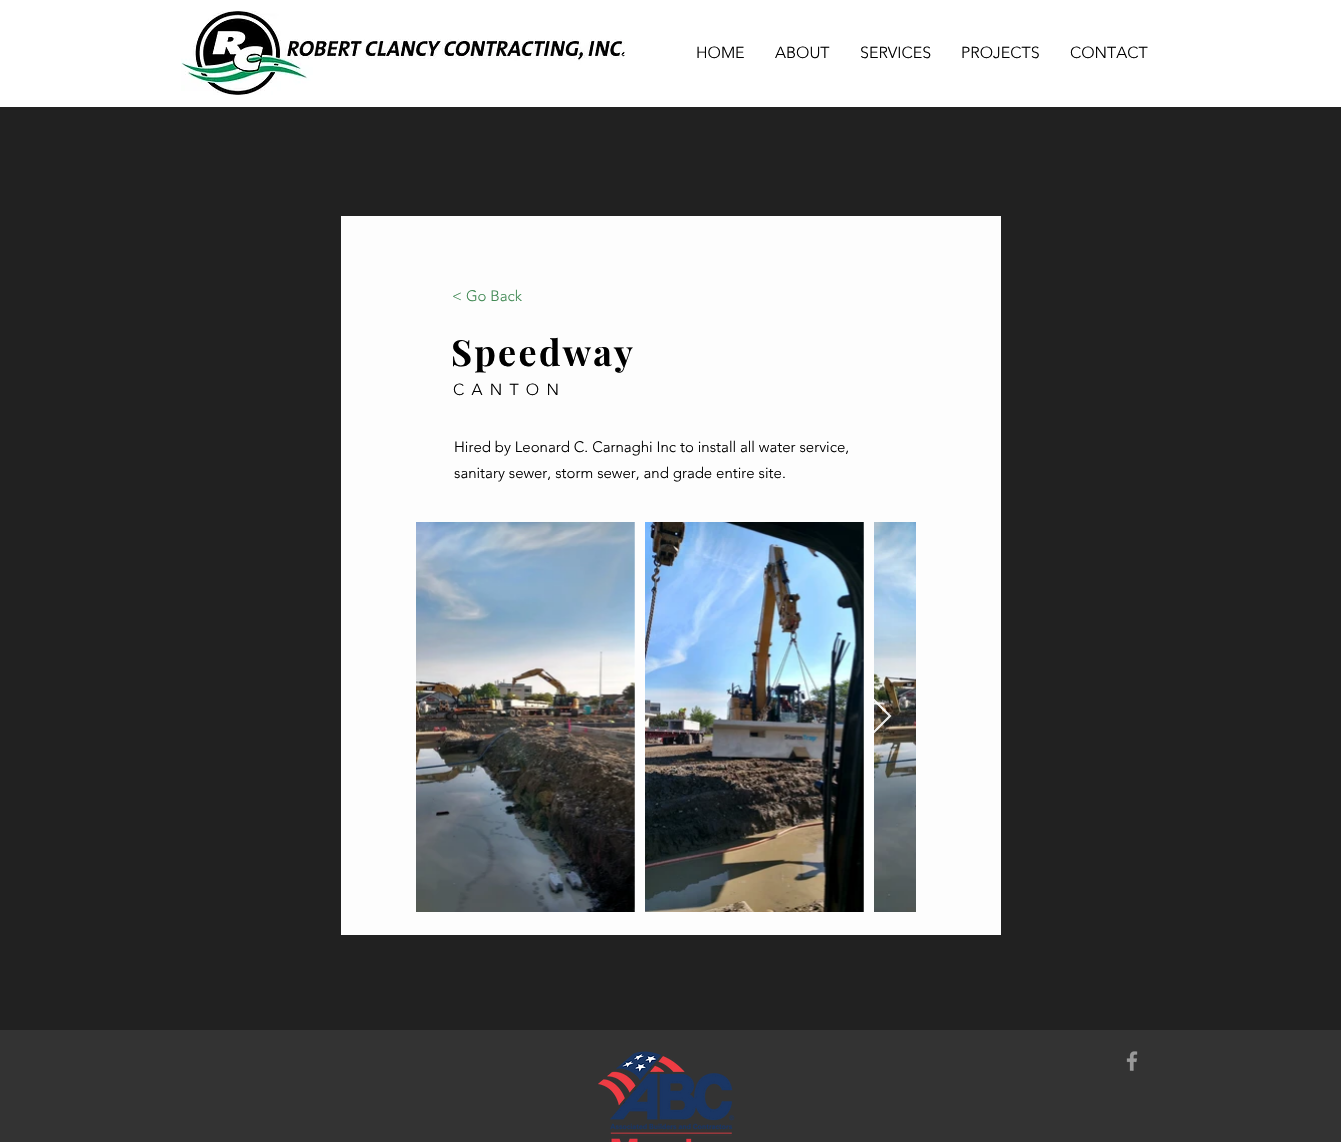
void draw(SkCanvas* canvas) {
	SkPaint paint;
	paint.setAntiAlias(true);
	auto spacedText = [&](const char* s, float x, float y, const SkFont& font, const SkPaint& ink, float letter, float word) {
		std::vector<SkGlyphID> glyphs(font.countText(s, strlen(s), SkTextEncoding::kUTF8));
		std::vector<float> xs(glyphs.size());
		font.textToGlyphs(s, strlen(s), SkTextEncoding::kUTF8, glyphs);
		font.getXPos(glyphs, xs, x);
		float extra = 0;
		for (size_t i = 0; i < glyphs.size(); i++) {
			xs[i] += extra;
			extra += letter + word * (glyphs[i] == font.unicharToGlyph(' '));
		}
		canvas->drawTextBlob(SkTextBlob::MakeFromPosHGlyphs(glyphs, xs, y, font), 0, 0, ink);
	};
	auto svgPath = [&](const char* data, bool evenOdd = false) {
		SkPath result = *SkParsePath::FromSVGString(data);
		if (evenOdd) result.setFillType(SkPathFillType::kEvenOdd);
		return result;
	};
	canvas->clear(0xff212121);
	paint.setColor(0xffffffff);
	canvas->drawRect(SkRect::MakeXYWH(0, 0, 1341, 107), paint);
	canvas->drawImageRect(SkImages::DeferredFromEncodedData(SkData::MakeFromFileName("img1.png")), SkRect::MakeXYWH(181, 11, 444, 84), SkSamplingOptions());
	SkFont f1(fontMgr->matchFamilyStyle("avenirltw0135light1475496", SkFontStyle(300, SkFontStyle::kNormal_Width, SkFontStyle::kUpright_Slant)), 16);
	f1.setSubpixel(true);
	paint.setColor(0xff000000);
	canvas->drawString("HOME", 696, 58, f1, paint);
	canvas->drawString("ABOUT", 775, 58, f1, paint);
	canvas->drawString("SERVICES", 860, 58, f1, paint);
	canvas->drawString("PROJECTS", 961, 58, f1, paint);
	canvas->drawString("CONTACT", 1070, 58, f1, paint);
	paint.setColor(0xfffdfdfd);
	canvas->drawRect(SkRect::MakeXYWH(341, 216, 660, 719), paint);
	SkFont f2(fontMgr->matchFamilyStyle("avenirltw0135light1475496", SkFontStyle(300, SkFontStyle::kNormal_Width, SkFontStyle::kUpright_Slant)), 15);
	f2.setSubpixel(true);
	paint.setColor(0xff428a55);
	canvas->drawString("< Go Back", 452, 301, f2, paint);
	SkFont f3(fontMgr->matchFamilyStyle("Playfair Display", SkFontStyle::Bold()), 36);
	f3.setSubpixel(true);
	paint.setColor(0xff000000);
	spacedText("Speedway", 451, 366, f3, paint, 2.25, 0);
	spacedText("CANTON", 453, 395, f1, paint, 7.25, 0);
	canvas->drawString("Hired by Leonard C. Carnaghi Inc to install all water service,", 454, 452, f2, paint);
	canvas->drawString("sanitary sewer, storm sewer, and grade entire site.", 454, 478, f2, paint);
	canvas->drawImageRect(SkImages::DeferredFromEncodedData(SkData::MakeFromFileName("img2.png")), SkRect::MakeXYWH(416, 522, 219, 390), SkSamplingOptions());
	canvas->drawImageRect(SkImages::DeferredFromEncodedData(SkData::MakeFromFileName("img3.png")), SkRect::MakeXYWH(645, 522, 219, 390), SkSamplingOptions());
	canvas->drawImageRect(SkImages::DeferredFromEncodedData(SkData::MakeFromFileName("img4.png")), SkRect::MakeXYWH(874, 522, 42, 390), SkSamplingOptions());
	paint.setColor(0xe6ffffff);
	canvas->drawPath(svgPath("M872 699.5L873.5 698L891.5 716L873.5 734L872 732.5L888.5 716Z"), paint);
	paint.setColor(0xff333333);
	canvas->drawRect(SkRect::MakeXYWH(0, 1030, 1341, 112), paint);
	canvas->drawImageRect(SkImages::DeferredFromEncodedData(SkData::MakeFromFileName("img5.png")), SkRect::MakeXYWH(598, 1051, 137, 91), SkSamplingOptions());
	canvas->drawImageRect(SkImages::DeferredFromEncodedData(SkData::MakeFromFileName("img6.png")), SkRect::MakeXYWH(1126, 1051, 12, 20), SkSamplingOptions());
}
